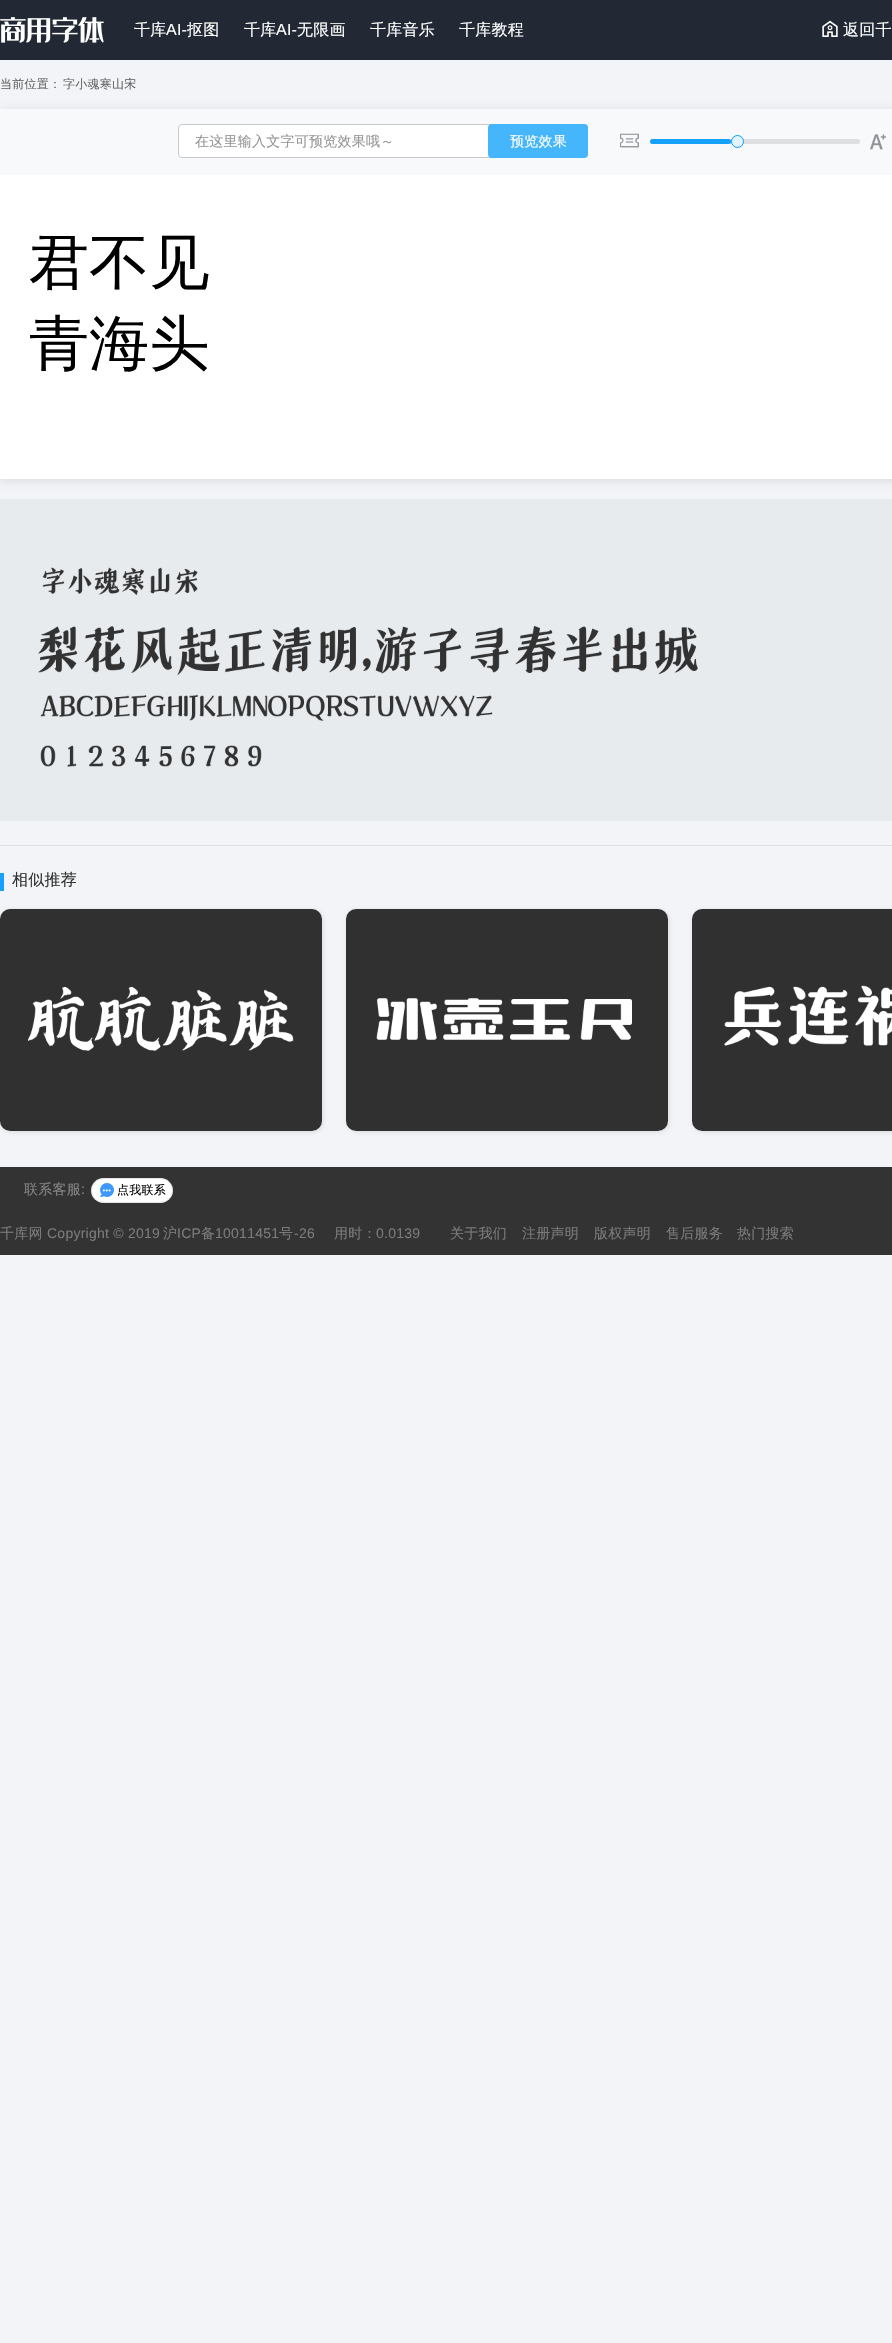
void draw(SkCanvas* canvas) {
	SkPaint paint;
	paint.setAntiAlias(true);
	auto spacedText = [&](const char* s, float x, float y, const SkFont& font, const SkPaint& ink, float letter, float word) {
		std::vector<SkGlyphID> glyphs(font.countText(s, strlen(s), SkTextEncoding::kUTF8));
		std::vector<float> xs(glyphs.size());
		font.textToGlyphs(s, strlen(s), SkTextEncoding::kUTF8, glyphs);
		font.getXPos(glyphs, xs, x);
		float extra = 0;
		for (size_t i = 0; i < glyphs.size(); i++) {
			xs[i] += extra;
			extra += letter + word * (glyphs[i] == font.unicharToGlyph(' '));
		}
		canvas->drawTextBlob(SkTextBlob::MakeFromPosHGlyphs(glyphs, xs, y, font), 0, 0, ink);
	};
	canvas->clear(0xfff3f4f7);
	paint.setColor(0xff222934);
	canvas->drawRect(SkRect::MakeXYWH(0, 0, 892, 60), paint);
	canvas->drawImageRect(SkImages::DeferredFromEncodedData(SkData::MakeFromFileName("img1.png")), SkRect::MakeXYWH(0, 17, 104, 26), SkSamplingOptions());
	SkFont f1(fontMgr->matchFamilyStyle("WenQuanYi Zen Hei", SkFontStyle(500, SkFontStyle::kNormal_Width, SkFontStyle::kUpright_Slant)), 16);
	f1.setSubpixel(true);
	paint.setColor(0xffffffff);
	spacedText("千库", 134, 35, f1, paint, 0.25, 0);
	SkFont f2(fontMgr->matchFamilyStyle("Liberation Sans", SkFontStyle::Normal()), 16);
	f2.setSubpixel(true);
	spacedText("AI-", 166, 35, f2, paint, 0.25, 0);
	spacedText("抠图", 187, 35, f1, paint, 0.25, 0);
	spacedText("千库", 244, 35, f1, paint, 0.25, 0);
	spacedText("AI-", 276, 35, f2, paint, 0.25, 0);
	spacedText("无限画", 297, 35, f1, paint, 0.25, 0);
	spacedText("千库音乐", 370, 35, f1, paint, 0.25, 0);
	spacedText("千库教程", 459, 35, f1, paint, 0.25, 0);
	canvas->drawImageRect(SkImages::DeferredFromEncodedData(SkData::MakeFromFileName("img2.png")), SkRect::MakeXYWH(822, 20, 16, 17), SkSamplingOptions());
	spacedText("返回千", 843, 35, f1, paint, 0.25, 0);
	SkFont f3(fontMgr->matchFamilyStyle("WenQuanYi Zen Hei", SkFontStyle(500, SkFontStyle::kNormal_Width, SkFontStyle::kUpright_Slant)), 12);
	f3.setSubpixel(true);
	paint.setColor(0xff646464);
	spacedText("当前位置：", 0, 88, f3, paint, 0.25, 0);
	spacedText("字小魂寒山宋", 63, 88, f3, paint, 0.25, 0);
	paint.setColor(0xffdedfe1);
	canvas->drawRect(SkRect::MakeXYWH(0, 845, 892, 1), paint);
	paint.setColor(0x1a000000);
	paint.setMaskFilter(SkMaskFilter::MakeBlur(kNormal_SkBlurStyle, 5));
	canvas->drawRoundRect(SkRect::MakeXYWH(0, 111, 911, 370), 4, 4, paint);
	paint.setMaskFilter(nullptr);
	paint.setColor(0xfff8f9fb);
	canvas->drawRect(SkRect::MakeXYWH(0, 109, 892, 66), paint);
	paint.setColor(0xffffffff);
	canvas->drawRoundRect(SkRect::MakeXYWH(178.5, 124.5, 409, 33), 3.5, 3.5, paint);
	paint.setStroke(true);
	paint.setStrokeWidth(1);
	paint.setColor(0xffc8c9cc);
	canvas->drawRoundRect(SkRect::MakeXYWH(178.5, 124.5, 409, 33), 3.5, 3.5, paint);
	SkFont f4(fontMgr->matchFamilyStyle("WenQuanYi Zen Hei", SkFontStyle(500, SkFontStyle::kNormal_Width, SkFontStyle::kUpright_Slant)), 14);
	f4.setSubpixel(true);
	paint.setStroke(false);
	paint.setColor(0xff959595);
	spacedText("在这里输入文字可预览效果哦～", 195, 146, f4, paint, 0.25, 0);
	paint.setColor(0xff45b6fc);
	canvas->drawRoundRect(SkRect::MakeXYWH(488, 124, 100, 34), 4, 4, paint);
	paint.setColor(0xffffffff);
	spacedText("预览效果", 510, 146, f4, paint, 0.25, 0);
	canvas->drawImageRect(SkImages::DeferredFromEncodedData(SkData::MakeFromFileName("img3.png")), SkRect::MakeXYWH(620, 133, 19, 15), SkSamplingOptions());
	paint.setColor(0xffdedfe1);
	canvas->drawRoundRect(SkRect::MakeXYWH(650, 139, 210, 5), 2.5, 2.5, paint);
	paint.setColor(0xff17a1ff);
	canvas->drawRoundRect(SkRect::MakeXYWH(650, 139, 81, 5), 2.5, 2.5, paint);
	paint.setColor(0xffe4f4ff);
	canvas->drawCircle(737.5, 141.5, 6, paint);
	paint.setStroke(true);
	paint.setColor(0xff089bff);
	canvas->drawCircle(737.5, 141.5, 6, paint);
	canvas->drawImageRect(SkImages::DeferredFromEncodedData(SkData::MakeFromFileName("img4.png")), SkRect::MakeXYWH(870, 134, 16, 16), SkSamplingOptions());
	paint.setStroke(false);
	paint.setColor(0xffffffff);
	canvas->drawRect(SkRect::MakeXYWH(0, 175, 892, 304), paint);
	SkFont f5(fontMgr->matchFamilyStyle("WenQuanYi Zen Hei", SkFontStyle(500, SkFontStyle::kNormal_Width, SkFontStyle::kUpright_Slant)), 60);
	f5.setSubpixel(true);
	paint.setColor(0xff000000);
	spacedText("君不见", 29, 283, f5, paint, 0.25, 0);
	spacedText("青海头", 29, 364, f5, paint, 0.25, 0);
	paint.setColor(0xffe8ebee);
	canvas->drawRect(SkRect::MakeXYWH(698, 499, 194, 322), paint);
	canvas->drawImageRect(SkImages::DeferredFromEncodedData(SkData::MakeFromFileName("img5.png")), SkRect::MakeXYWH(0, 499, 698, 322), SkSamplingOptions());
	paint.setColor(0xff17a1ff);
	canvas->drawRect(SkRect::MakeXYWH(0, 873, 4, 18), paint);
	paint.setColor(0xff323232);
	spacedText("相似推荐", 12, 885, f1, paint, 0.25, 0);
	paint.setColor(0x1a000000);
	paint.setMaskFilter(SkMaskFilter::MakeBlur(kNormal_SkBlurStyle, 2));
	canvas->drawRoundRect(SkRect::MakeXYWH(1, 910, 322, 222), 10, 10, paint);
	paint.setMaskFilter(nullptr);
	paint.setColor(0xffffffff);
	canvas->drawRoundRect(SkRect::MakeXYWH(0, 909, 322, 222), 10, 10, paint);
	canvas->drawImageRect(SkImages::DeferredFromEncodedData(SkData::MakeFromFileName("img6.png")), SkRect::MakeXYWH(0, 909, 322, 222), SkSamplingOptions());
	paint.setColor(0x1a000000);
	paint.setMaskFilter(SkMaskFilter::MakeBlur(kNormal_SkBlurStyle, 2));
	canvas->drawRoundRect(SkRect::MakeXYWH(347, 910, 322, 222), 10, 10, paint);
	paint.setMaskFilter(nullptr);
	paint.setColor(0xffffffff);
	canvas->drawRoundRect(SkRect::MakeXYWH(346, 909, 322, 222), 10, 10, paint);
	canvas->drawImageRect(SkImages::DeferredFromEncodedData(SkData::MakeFromFileName("img7.png")), SkRect::MakeXYWH(346, 909, 322, 222), SkSamplingOptions());
	paint.setColor(0x1a000000);
	paint.setMaskFilter(SkMaskFilter::MakeBlur(kNormal_SkBlurStyle, 2));
	canvas->drawRoundRect(SkRect::MakeXYWH(693, 910, 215, 222), 10, 10, paint);
	paint.setMaskFilter(nullptr);
	paint.setColor(0xffffffff);
	canvas->drawRoundRect(SkRect::MakeXYWH(692, 909, 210, 222), 10, 10, paint);
	canvas->drawImageRect(SkImages::DeferredFromEncodedData(SkData::MakeFromFileName("img8.png")), SkRect::MakeXYWH(692, 909, 200, 222), SkSamplingOptions());
	paint.setColor(0xff333333);
	canvas->drawRect(SkRect::MakeXYWH(0, 1167, 892, 88), paint);
	paint.setColor(0xff858585);
	spacedText("联系客服", 24, 1194, f4, paint, 0.25, 0);
	SkFont f6(fontMgr->matchFamilyStyle("Liberation Sans", SkFontStyle::Normal()), 14);
	f6.setSubpixel(true);
	spacedText(":", 81, 1194, f6, paint, 0.25, 0);
	paint.setColor(0xffffffff);
	canvas->drawRoundRect(SkRect::MakeXYWH(91, 1178, 82, 25), 12.5, 12.5, paint);
	paint.setStroke(true);
	paint.setColor(0x1a000000);
	canvas->drawRoundRect(SkRect::MakeXYWH(91.5, 1178.5, 81, 24), 12, 12, paint);
	canvas->drawImageRect(SkImages::DeferredFromEncodedData(SkData::MakeFromFileName("img9.png")), SkRect::MakeXYWH(100, 1183, 14, 14), SkSamplingOptions());
	paint.setStroke(false);
	paint.setColor(0xff000000);
	spacedText("点我联系", 117, 1194, f3, paint, 0.25, 0);
	paint.setColor(0xff7b7b7b);
	spacedText("千库网", 0, 1238, f4, paint, 0.25, 0);
	spacedText("Copyright © 2019", 47, 1238, f6, paint, 0.25, 0);
	spacedText("沪", 163, 1238, f4, paint, 0.25, 0);
	spacedText("ICP", 177, 1238, f6, paint, 0.25, 0);
	spacedText("备", 201, 1238, f4, paint, 0.25, 0);
	spacedText("10011451", 215, 1238, f6, paint, 0.25, 0);
	spacedText("号", 279, 1238, f4, paint, 0.25, 0);
	spacedText("-26", 294, 1238, f6, paint, 0.25, 0);
	spacedText("用时：", 334, 1238, f4, paint, 0.25, 0);
	spacedText("0.0139", 376, 1238, f6, paint, 0.25, 0);
	spacedText("关于我们", 450, 1238, f4, paint, 0.25, 0);
	spacedText("注册声明", 522, 1238, f4, paint, 0.25, 0);
	spacedText("版权声明", 594, 1238, f4, paint, 0.25, 0);
	spacedText("售后服务", 666, 1238, f4, paint, 0.25, 0);
	spacedText("热门搜索", 737, 1238, f4, paint, 0.25, 0);
}
